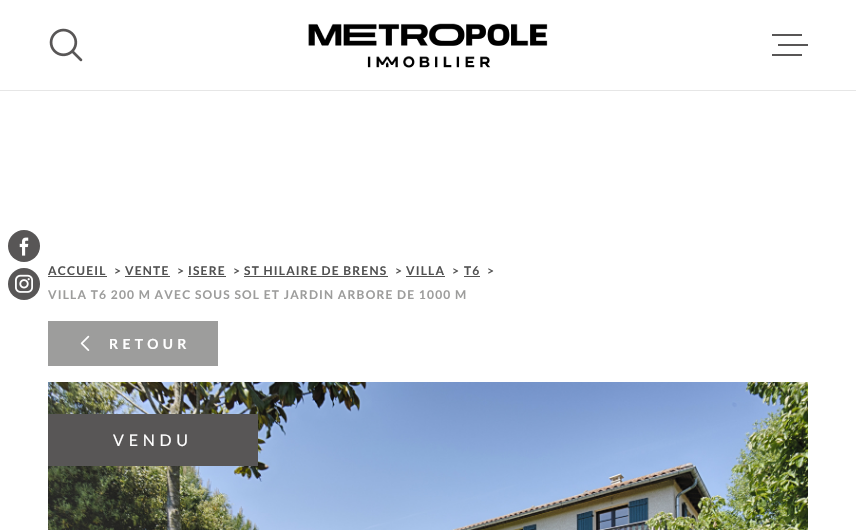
static SkFont makeFont(const char* family, int weight, float size, bool italic = false) {
  SkFontStyle style(weight, SkFontStyle::kNormal_Width,
    italic ? SkFontStyle::kItalic_Slant : SkFontStyle::kUpright_Slant);
  SkFont result(fontMgr->matchFamilyStyle(family, style), size);
  result.setSubpixel(true);
  return result;
}

static void spacedText(SkCanvas* c, const char* s, float x, float y, const SkFont& font, const SkPaint& ink, float letter, float word) {
  std::vector<SkGlyphID> glyphs(font.countText(s, strlen(s), SkTextEncoding::kUTF8));
  std::vector<float> xs(glyphs.size());
  font.textToGlyphs(s, strlen(s), SkTextEncoding::kUTF8, glyphs);
  font.getXPos(glyphs, xs, x);
  float extra = 0;
  for (size_t i = 0; i < glyphs.size(); i++) {
    xs[i] += extra;
    extra += letter + word * (glyphs[i] == font.unicharToGlyph(' '));
  }
  c->drawTextBlob(SkTextBlob::MakeFromPosHGlyphs(glyphs, xs, y, font), 0, 0, ink);
}

static void box(SkCanvas* c, float l, float t, float r, float b, SkColor color) {
  SkPaint ink(SkColor4f::FromColor(color));
  ink.setAntiAlias(true);
  c->drawRect(SkRect::MakeLTRB(l, t, r, b), ink);
}

static void picture(SkCanvas* c, const char* path, float l, float t, float r, float b) {
  auto image = SkImages::DeferredFromEncodedData(SkData::MakeFromFileName(path));
  c->drawImageRect(image, SkRect::MakeLTRB(l, t, r, b), SkSamplingOptions());
}

void draw(SkCanvas* c) {
  SkPaint paint;
  paint.setAntiAlias(true);
  c->clear(0xffffffff);
  paint.setColor(0xff585656);
  c->drawCircle(24, 246, 16, paint);
  picture(c, "img_01.png", 19, 237, 29, 256);
  c->drawCircle(24, 284, 16, paint);
  picture(c, "img_02.png", 15, 274, 33, 293);
  picture(c, "img_03.png", 49, 28, 83, 62);
  picture(c, "img_04.png", 308, 23, 548, 68);
  box(c, 778, 44, 808, 46, 0xff585656);
  box(c, 772, 34, 802, 36, 0xff585656);
  box(c, 772, 54, 802, 56, 0xff585656);
  box(c, 0, 90, 856, 91, 0xffe6e6e6);
  SkFont face1 = makeFont("Lato", 700, 12);
  paint.setColor(0xff525252);
  spacedText(c, "ACCUEIL", 48, 275, face1, paint, 1.2f, 0);
  box(c, 48, 276, 107, 277, 0xff525252);
  spacedText(c, ">", 114, 275, face1, paint, 1.2f, 0);
  spacedText(c, "VENTE", 125, 275, face1, paint, 1.2f, 0);
  box(c, 125, 276, 170, 277, 0xff525252);
  spacedText(c, ">", 177, 275, face1, paint, 1.2f, 0);
  spacedText(c, "ISERE", 188, 275, face1, paint, 1.2f, 0);
  box(c, 188, 276, 226, 277, 0xff525252);
  spacedText(c, ">", 233, 275, face1, paint, 1.2f, 0);
  spacedText(c, "ST HILAIRE DE BRENS", 244, 275, face1, paint, 1.2f, 0);
  box(c, 244, 276, 388, 277, 0xff525252);
  spacedText(c, ">", 395, 275, face1, paint, 1.2f, 0);
  spacedText(c, "VILLA", 406, 275, face1, paint, 1.2f, 0);
  box(c, 406, 276, 445, 277, 0xff525252);
  spacedText(c, ">", 452, 275, face1, paint, 1.2f, 0);
  spacedText(c, "T6", 464, 275, face1, paint, 1.2f, 0);
  box(c, 464, 276, 480, 277, 0xff525252);
  spacedText(c, ">", 487, 275, face1, paint, 1.2f, 0);
  paint.setColor(0xff9d9d9c);
  spacedText(c, "VILLA T6 200 M AVEC SOUS SOL ET JARDIN ARBORE DE 1000 M", 48, 299, face1, paint, 1.2f, 0);
  box(c, 48, 321, 218, 366, 0xff9d9d9c);
  picture(c, "img_05.png", 80, 335, 90, 351);
  SkFont face2 = makeFont("Lato", 700, 14);
  paint.setColor(0xffffffff);
  spacedText(c, "RETOUR", 109, 349, face2, paint, 4.25f, 0);
  picture(c, "img_06.png", 48, 382, 808, 530);
  box(c, 48, 414, 258, 466, 0xff585656);
  SkFont face3 = makeFont("Lato", 400, 16);
  spacedText(c, "VENDU", 113, 446, face3, paint, 4.75f, 0);
}
